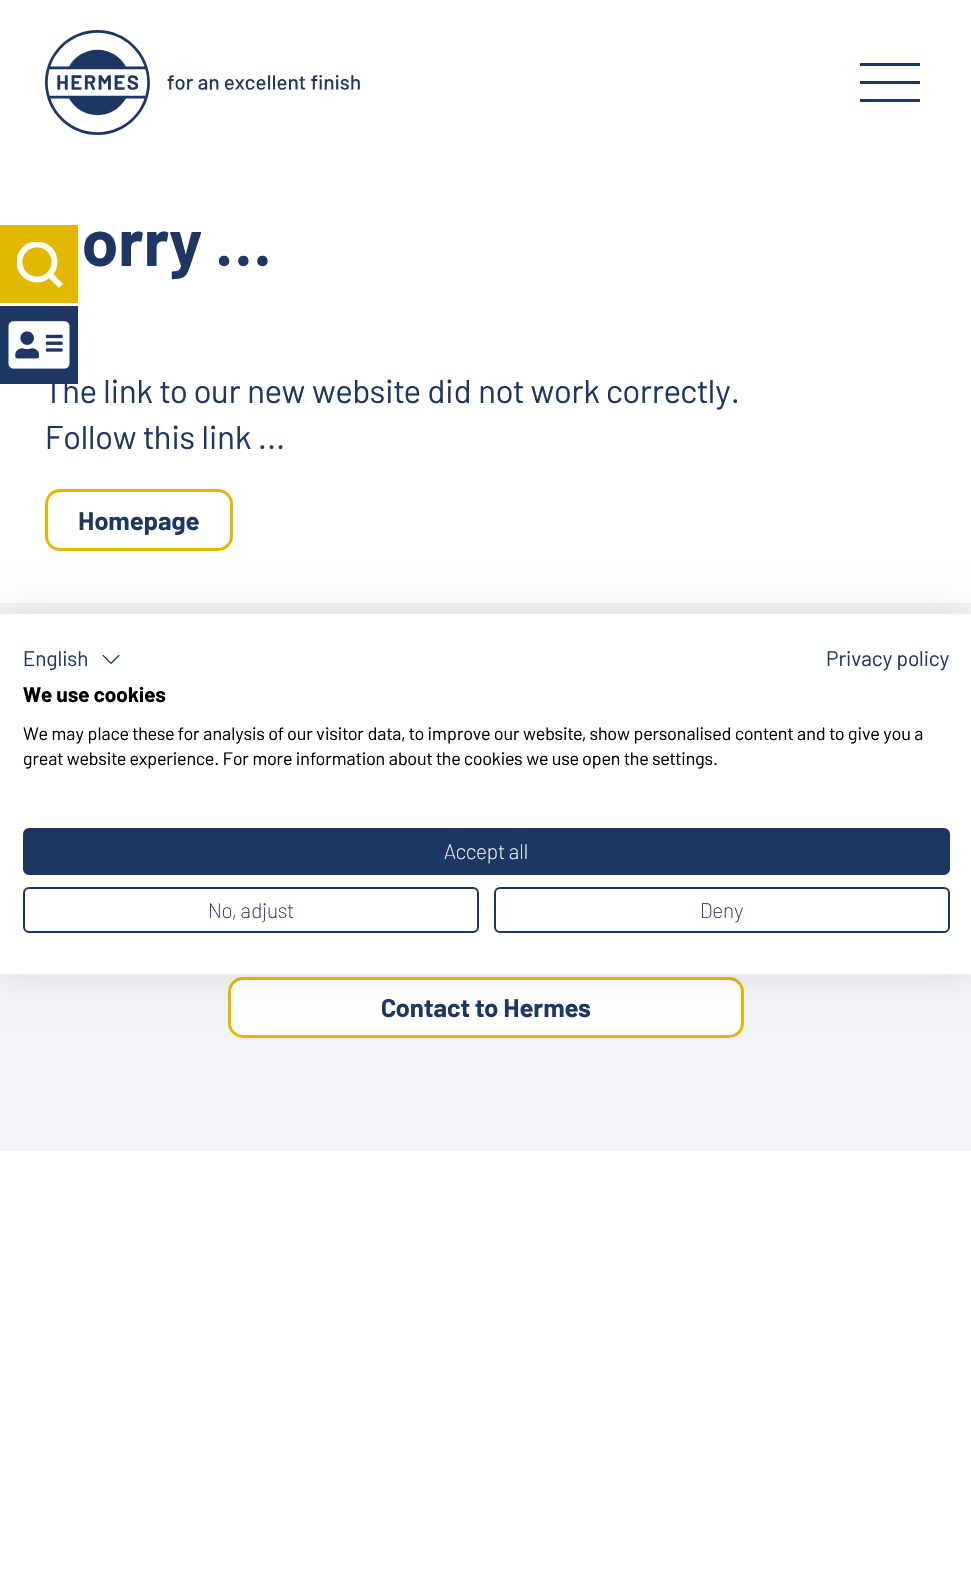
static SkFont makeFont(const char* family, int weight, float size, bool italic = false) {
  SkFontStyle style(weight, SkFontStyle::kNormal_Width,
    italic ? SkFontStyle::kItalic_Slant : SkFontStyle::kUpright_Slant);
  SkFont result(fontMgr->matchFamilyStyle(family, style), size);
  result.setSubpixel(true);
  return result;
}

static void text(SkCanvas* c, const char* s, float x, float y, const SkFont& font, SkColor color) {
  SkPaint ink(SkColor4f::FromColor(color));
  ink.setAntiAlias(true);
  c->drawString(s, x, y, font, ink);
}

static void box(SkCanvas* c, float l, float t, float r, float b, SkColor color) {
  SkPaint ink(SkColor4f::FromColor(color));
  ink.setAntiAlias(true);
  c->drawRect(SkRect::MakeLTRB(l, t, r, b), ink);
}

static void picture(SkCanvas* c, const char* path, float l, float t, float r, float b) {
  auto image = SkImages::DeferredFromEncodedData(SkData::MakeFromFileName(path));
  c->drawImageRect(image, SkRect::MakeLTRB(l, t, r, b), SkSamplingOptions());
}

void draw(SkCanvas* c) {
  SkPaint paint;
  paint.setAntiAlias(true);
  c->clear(0xffffffff);
  picture(c, "img_01.png", 45, 30, 360, 135);
  box(c, 860, 63, 920, 66, 0xff1e3664);
  box(c, 860, 81, 920, 84, 0xff1e3664);
  box(c, 860, 99, 920, 102, 0xff1e3664);
  box(c, 0, 225, 78, 303, 0xffe2b900);
  picture(c, "img_02.png", 17, 242, 63, 288);
  box(c, 0, 306, 78, 384, 0xff1e3664);
  picture(c, "img_03.png", 8, 321, 70, 369);
  SkFont face1 = makeFont("Barlow", 700, 66);
  text(c, "orry …", 82, 266, face1, 0xff1e3664);
  SkFont face2 = makeFont("Barlow", 400, 33);
  text(c, "The link to our new website did not work correctly.", 45, 403, face2, 0xff1e3664);
  text(c, "Follow this link ...", 45, 449, face2, 0xff1e3664);
  paint.setStyle(SkPaint::kStroke_Style);
  paint.setStrokeWidth(3);
  paint.setColor(0xffe2b900);
  c->drawRoundRect(SkRect::MakeLTRB(46.5f, 490.5f, 231.5f, 549.5f), 13.5f, 13.5f, paint);
  SkFont face3 = makeFont("Barlow", 700, 25.5f);
  text(c, "Homepage", 78, 530, face3, 0xff1e3664);
  box(c, 0, 603, 971, 1151, 0xfff3f4f7);
  paint.setStyle(SkPaint::kFill_Style);
  paint.setColor(0xffffffff);
  c->drawRoundRect(SkRect::MakeLTRB(229.5f, 978.5f, 742.5f, 1036.5f), 13.5f, 13.5f, paint);
  paint.setStyle(SkPaint::kStroke_Style);
  paint.setColor(0xffe2b900);
  c->drawRoundRect(SkRect::MakeLTRB(229.5f, 978.5f, 742.5f, 1036.5f), 13.5f, 13.5f, paint);
  text(c, "Contact to Hermes", 381, 1017, face3, 0xff1e3664);
  paint.setStyle(SkPaint::kFill_Style);
  paint.setColor(0x1a000000);
  paint.setMaskFilter(SkMaskFilter::MakeBlur(kNormal_SkBlurStyle, 18));
  c->drawRect(SkRect::MakeLTRB(0, 614, 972, 974), paint);
  paint.setMaskFilter(nullptr);
  box(c, 0, 614, 971, 974, 0xffffffff);
  SkFont face4 = makeFont("Barlow", 400, 21);
  text(c, "English", 23, 666, face4, 0xff1e3664);
  picture(c, "img_04.png", 102, 654, 120, 664);
  text(c, "Privacy policy", 826, 666, face4, 0xff1e3664);
  SkFont face5 = makeFont("Barlow", 700, 21);
  text(c, "We use cookies", 23, 702, face5, 0xff000000);
  SkFont face6 = makeFont("Barlow", 400, 18);
  text(c, "We may place these for analysis of our visitor data, to improve our website, show personalised content and to give you a", 23, 740, face6, 0xff000000);
  text(c, "great website experience. For more information about the cookies we use open the settings.", 23, 765, face6, 0xff000000);
  paint.setColor(0xff1e3664);
  c->drawRoundRect(SkRect::MakeLTRB(24, 829, 949, 874), 5, 5, paint);
  paint.setStyle(SkPaint::kStroke_Style);
  paint.setStrokeWidth(2);
  c->drawRoundRect(SkRect::MakeLTRB(24, 829, 949, 874), 5, 5, paint);
  SkFont face7 = makeFont("Barlow", 200, 21);
  text(c, "Accept all", 444, 859, face7, 0xffffffff);
  c->drawRoundRect(SkRect::MakeLTRB(24, 888, 478, 932), 5, 5, paint);
  text(c, "No, adjust", 208, 918, face7, 0xff1e3664);
  c->drawRoundRect(SkRect::MakeLTRB(495, 888, 949, 932), 5, 5, paint);
  text(c, "Deny", 700, 918, face7, 0xff1e3664);
}
